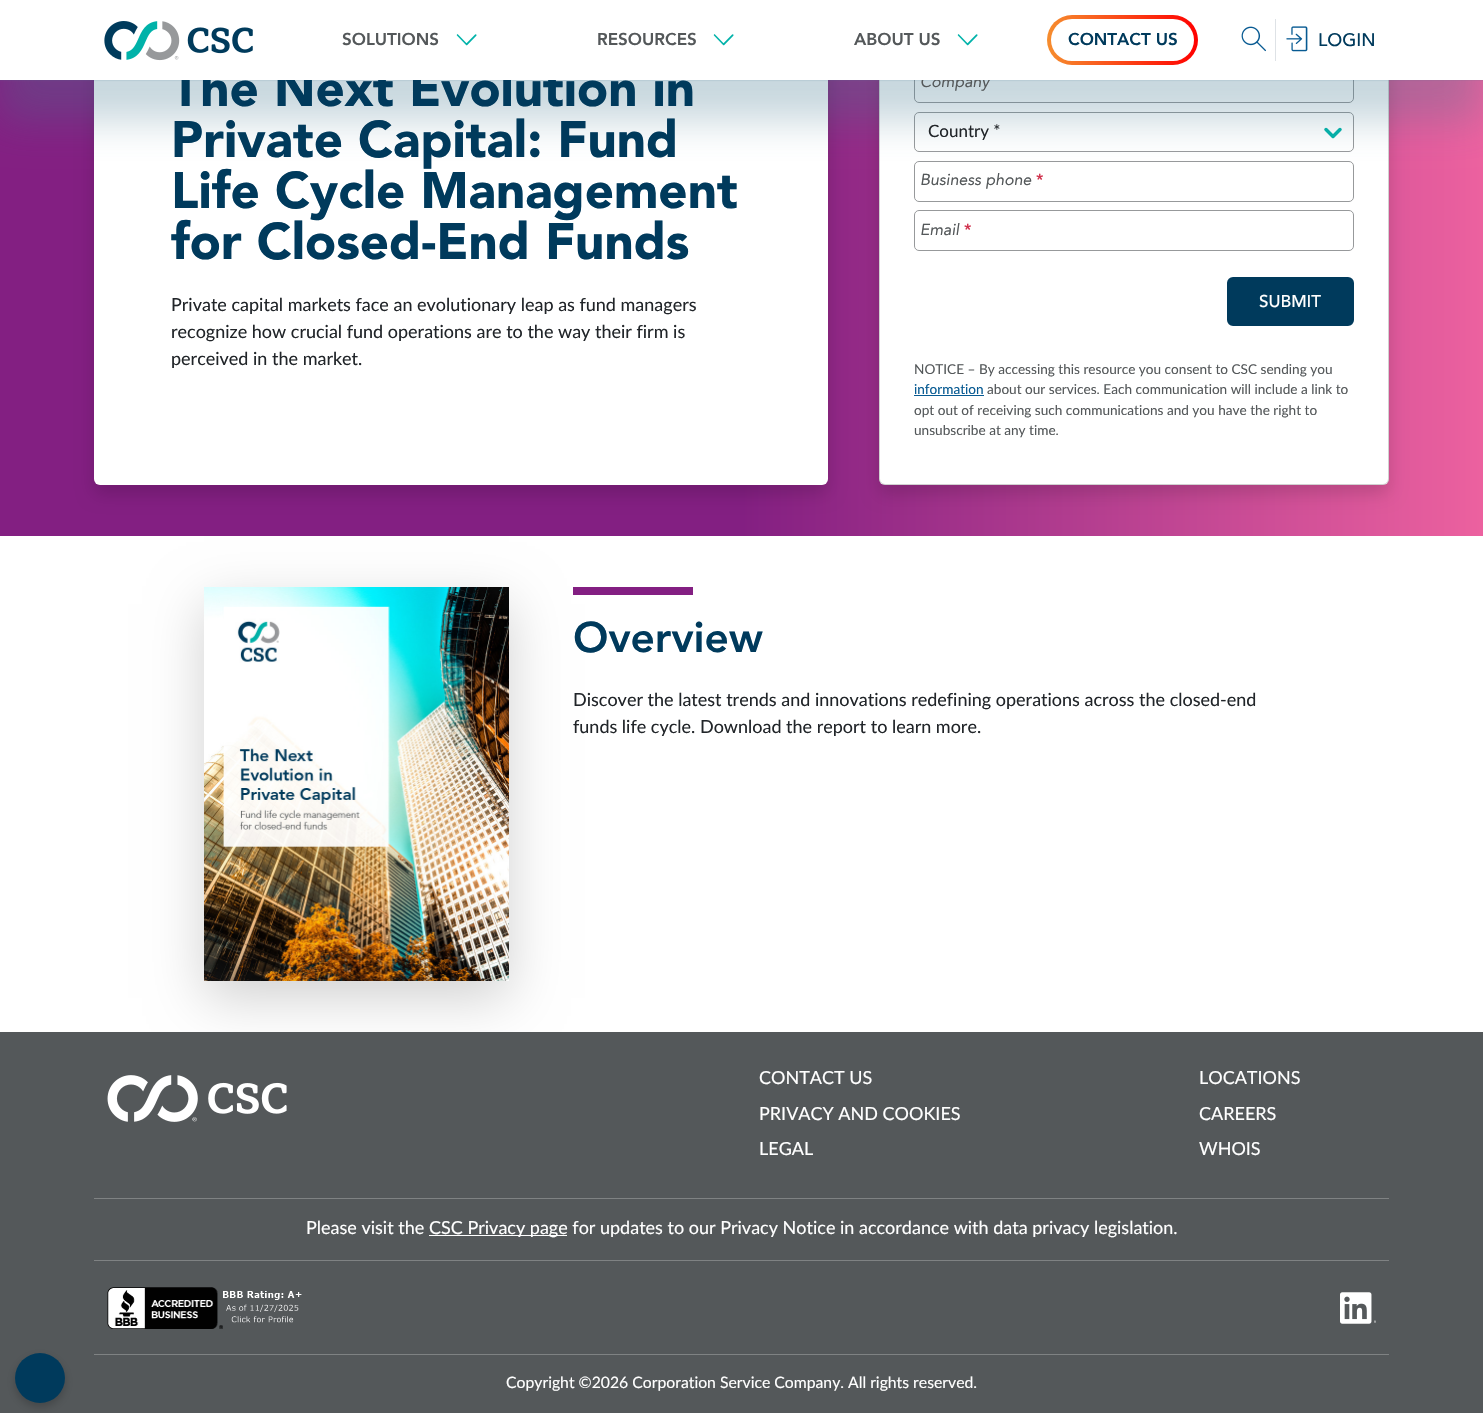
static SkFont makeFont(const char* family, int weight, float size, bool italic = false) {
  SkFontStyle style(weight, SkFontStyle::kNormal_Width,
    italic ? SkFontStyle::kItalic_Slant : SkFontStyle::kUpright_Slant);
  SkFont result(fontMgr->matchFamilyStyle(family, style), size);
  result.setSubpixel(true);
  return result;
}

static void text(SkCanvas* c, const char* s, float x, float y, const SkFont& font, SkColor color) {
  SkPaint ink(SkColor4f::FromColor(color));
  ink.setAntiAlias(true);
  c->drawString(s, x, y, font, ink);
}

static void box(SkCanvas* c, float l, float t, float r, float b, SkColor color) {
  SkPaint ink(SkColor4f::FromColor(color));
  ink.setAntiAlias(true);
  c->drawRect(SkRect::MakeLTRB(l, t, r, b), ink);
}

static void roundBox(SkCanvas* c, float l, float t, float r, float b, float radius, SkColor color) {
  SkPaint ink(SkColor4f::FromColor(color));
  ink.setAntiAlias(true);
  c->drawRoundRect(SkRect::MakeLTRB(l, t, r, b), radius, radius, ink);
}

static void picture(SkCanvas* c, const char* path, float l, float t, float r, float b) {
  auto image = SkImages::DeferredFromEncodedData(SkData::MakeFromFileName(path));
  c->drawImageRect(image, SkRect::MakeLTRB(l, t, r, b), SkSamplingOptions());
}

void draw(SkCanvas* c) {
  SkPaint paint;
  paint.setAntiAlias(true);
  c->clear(0xffffffff);
  paint.setColor(0x2e000000);
  paint.setMaskFilter(SkMaskFilter::MakeBlur(kNormal_SkBlurStyle, 25.5f));
  c->drawRect(SkRect::MakeLTRB(204, 604, 509, 998), paint);
  paint.setMaskFilter(nullptr);
  {
    const SkColor colors[] = {0xff831f82, 0xffec619f};
    const float stops[] = {0.5f, 1};
    const SkPoint ends[] = {{0, 172}, {1483, 172}};
    paint.setShader(SkGradientShader::MakeLinear(ends, colors, stops, 2, SkTileMode::kClamp));
    paint.setAlpha(255);
  }
  c->drawRect(SkRect::MakeLTRB(0, 80, 1483, 536), paint);
  paint.setShader(nullptr);
  paint.setColor(0x26000000);
  paint.setMaskFilter(SkMaskFilter::MakeBlur(kNormal_SkBlurStyle, 8.5f));
  c->drawRoundRect(SkRect::MakeLTRB(94, -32, 828, 494), 6, 6, paint);
  paint.setMaskFilter(nullptr);
  roundBox(c, 94, -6, 828, 485, 6, 0xffffffff);
  paint.setMaskFilter(SkMaskFilter::MakeBlur(kNormal_SkBlurStyle, 8.5f));
  c->drawRoundRect(SkRect::MakeLTRB(879, -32, 1389, 494), 6, 6, paint);
  paint.setMaskFilter(nullptr);
  roundBox(c, 879, -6, 1389, 485, 6, 0xffffffff);
  paint.setStyle(SkPaint::kStroke_Style);
  paint.setStrokeWidth(1);
  paint.setColor(0x2e000000);
  c->drawRoundRect(SkRect::MakeLTRB(879.5f, -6.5f, 1388.5f, 484.5f), 5.5f, 5.5f, paint);
  paint.setColor(0xff97999b);
  c->drawRoundRect(SkRect::MakeLTRB(914.5f, 62.5f, 1353.5f, 102.5f), 4.5f, 4.5f, paint);
  paint.setStrokeWidth(3.5f);
  paint.setStrokeCap(SkPaint::kRound_Cap);
  paint.setStrokeJoin(SkPaint::kRound_Join);
  paint.setColor(0xff00b2a9);
  c->drawPath(SkPathBuilder().moveTo(1326, 129.5f).lineTo(1333, 136.5f).lineTo(1340, 129.5f).detach(), paint);
  paint.setStrokeWidth(1);
  paint.setStrokeCap(SkPaint::kButt_Cap);
  paint.setStrokeJoin(SkPaint::kMiter_Join);
  paint.setColor(0xff97999b);
  c->drawRoundRect(SkRect::MakeLTRB(914.5f, 112.5f, 1353.5f, 151.5f), 4.5f, 4.5f, paint);
  c->drawRoundRect(SkRect::MakeLTRB(914.5f, 161.5f, 1353.5f, 201.5f), 4.5f, 4.5f, paint);
  paint.setStyle(SkPaint::kFill_Style);
  paint.setColor(0x4d42788f);
  paint.setMaskFilter(SkMaskFilter::MakeBlur(kNormal_SkBlurStyle, 20));
  c->drawRect(SkRect::MakeLTRB(0, 40, 1483, 120), paint);
  paint.setMaskFilter(nullptr);
  paint.setColor(0x1a42788f);
  paint.setMaskFilter(SkMaskFilter::MakeBlur(kNormal_SkBlurStyle, 0.5f));
  c->drawRect(SkRect::MakeLTRB(0, 1, 1483, 81), paint);
  paint.setMaskFilter(nullptr);
  SkFont face1 = makeFont("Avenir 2", 900, 51);
  text(c, "The Next Evolution in", 171, 106, face1, 0xff003a5c);
  SkFont face2 = makeFont("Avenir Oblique", 400, 16);
  text(c, "Company", 920, 87, face2, 0xff54585a);
  box(c, 0, 0, 1483, 80, 0xffffffff);
  picture(c, "img_01.png", 104, 21, 253, 61);
  SkFont face3 = makeFont("Avenir", 900, 17);
  text(c, "SOLUTIONS", 342, 45, face3, 0xff54585a);
  picture(c, "img_02.png", 456, 34, 477, 46);
  text(c, "RESOURCES", 597, 45, face3, 0xff54585a);
  picture(c, "img_02.png", 713, 34, 734, 46);
  text(c, "ABOUT US", 854, 45, face3, 0xff54585a);
  picture(c, "img_02.png", 957, 34, 978, 46);
  {
    const SkColor colors[] = {0xffff0000, 0xfff68d2e};
    const float stops[] = {0, 1};
    const SkPoint ends[] = {{1198, 40}, {1047, 40}};
    paint.setShader(SkGradientShader::MakeLinear(ends, colors, stops, 2, SkTileMode::kClamp));
    paint.setAlpha(255);
  }
  c->drawRoundRect(SkRect::MakeLTRB(1047, 15, 1198, 65), 25, 25, paint);
  roundBox(c, 1051, 19, 1194, 61, 21, 0xffffffff);
  text(c, "CONTACT US", 1068, 45, face3, 0xff003a5c);
  box(c, 1275, 19, 1276, 61, 0xffdee2e6);
  picture(c, "img_03.png", 1241, 26, 1266, 52);
  picture(c, "img_04.png", 1286, 26, 1308, 52);
  SkFont face4 = makeFont("Avenir", 500, 18);
  text(c, "LOGIN", 1318, 46, face4, 0xff003a5c);
  text(c, "Private Capital: Fund", 171, 157, face1, 0xff003a5c);
  text(c, "Life Cycle Management", 171, 208, face1, 0xff003a5c);
  text(c, "for Closed-End Funds", 171, 259, face1, 0xff003a5c);
  SkFont face5 = makeFont("Lato", 400, 18);
  text(c, "Private capital markets face an evolutionary leap as fund managers", 171, 311, face5, 0xff212529);
  text(c, "recognize how crucial fund operations are to the way their firm is", 171, 338, face5, 0xff212529);
  text(c, "perceived in the market.", 171, 365, face5, 0xff212529);
  SkFont face6 = makeFont("Lato", 400, 17);
  text(c, "Country *", 928, 137, face6, 0xff212529);
  text(c, "Business phone", 920, 185, face2, 0xff54585a);
  SkFont face7 = makeFont("Avenir", 900, 16);
  text(c, "*", 1036, 185, face7, 0xffd1344f);
  paint.setStyle(SkPaint::kStroke_Style);
  paint.setShader(nullptr);
  paint.setColor(0xff97999b);
  c->drawRoundRect(SkRect::MakeLTRB(914.5f, 210.5f, 1353.5f, 250.5f), 4.5f, 4.5f, paint);
  text(c, "Email", 920, 235, face2, 0xff54585a);
  text(c, "*", 964, 235, face7, 0xffd1344f);
  paint.setStyle(SkPaint::kFill_Style);
  paint.setColor(0xff003a5c);
  c->drawRoundRect(SkRect::MakeLTRB(1228, 278, 1353, 325), 5, 5, paint);
  paint.setStyle(SkPaint::kStroke_Style);
  paint.setStrokeWidth(2);
  c->drawRoundRect(SkRect::MakeLTRB(1228, 278, 1353, 325), 5, 5, paint);
  SkFont face8 = makeFont("Avenir", 500, 17);
  text(c, "SUBMIT", 1259, 307, face8, 0xffffffff);
  SkFont face9 = makeFont("Lato", 400, 13.6f);
  text(c, "NOTICE – By accessing this resource you consent to CSC sending you", 914, 374, face9, 0xff54585a);
  text(c, "information", 914, 394, face9, 0xff075a92);
  box(c, 914, 395, 984, 396, 0xff075a92);
  text(c, "about our services. Each communication will include a link to", 987, 394, face9, 0xff54585a);
  text(c, "opt out of receiving such communications and you have the right to", 914, 415, face9, 0xff54585a);
  text(c, "unsubscribe at any time.", 914, 435, face9, 0xff54585a);
  picture(c, "img_05.png", 204, 587, 509, 981);
  box(c, 573, 587, 693, 595, 0xff831f82);
  SkFont face10 = makeFont("Avenir", 900, 42.5f);
  text(c, "Overview", 573, 652, face10, 0xff003a5c);
  text(c, "Discover the latest trends and innovations redefining operations across the closed-end", 573, 706, face5, 0xff212529);
  text(c, "funds life cycle. Download the report to learn more.", 573, 733, face5, 0xff212529);
  box(c, 0, 1032, 1483, 1413, 0xff54585a);
  paint.setStyle(SkPaint::kFill_Style);
  paint.setColor(0x33000000);
  paint.setMaskFilter(SkMaskFilter::MakeBlur(kNormal_SkBlurStyle, 4));
  c->drawRoundRect(SkRect::MakeLTRB(15, 1357, 65, 1407), 25, 25, paint);
  paint.setMaskFilter(nullptr);
  paint.setColor(0xff003a5c);
  c->drawCircle(40, 1378, 25, paint);
  picture(c, "img_06.png", 107, 1075, 287, 1122);
  text(c, "CONTACT US", 759, 1084, face5, 0xffffffff);
  text(c, "PRIVACY AND COOKIES", 759, 1120, face5, 0xffffffff);
  text(c, "LEGAL", 759, 1155, face5, 0xffffffff);
  text(c, "LOCATIONS", 1199, 1084, face5, 0xffffffff);
  text(c, "CAREERS", 1199, 1120, face5, 0xffffffff);
  text(c, "WHOIS", 1199, 1155, face5, 0xffffffff);
  box(c, 94, 1198, 1389, 1199, 0xff7f8283);
  text(c, "Please visit the", 306, 1234, face5, 0xffffffff);
  box(c, 429, 1235, 567, 1236, 0xffffffff);
  text(c, "CSC Privacy page for updates to our Privacy Notice in accordance with data privacy legislation.", 429, 1234, face5, 0xffffffff);
  box(c, 94, 1260, 1389, 1261, 0xff7f8283);
  picture(c, "img_07.png", 107, 1287, 302, 1329);
  picture(c, "img_08.png", 1340, 1292, 1376, 1324);
  box(c, 94, 1354, 1389, 1355, 0xff7f8283);
  SkFont face11 = makeFont("Lato", 400, 15.75f);
  text(c, "Copyright ©2026 Corporation Service Company. All rights reserved.", 506, 1388, face11, 0xffffffff);
}
